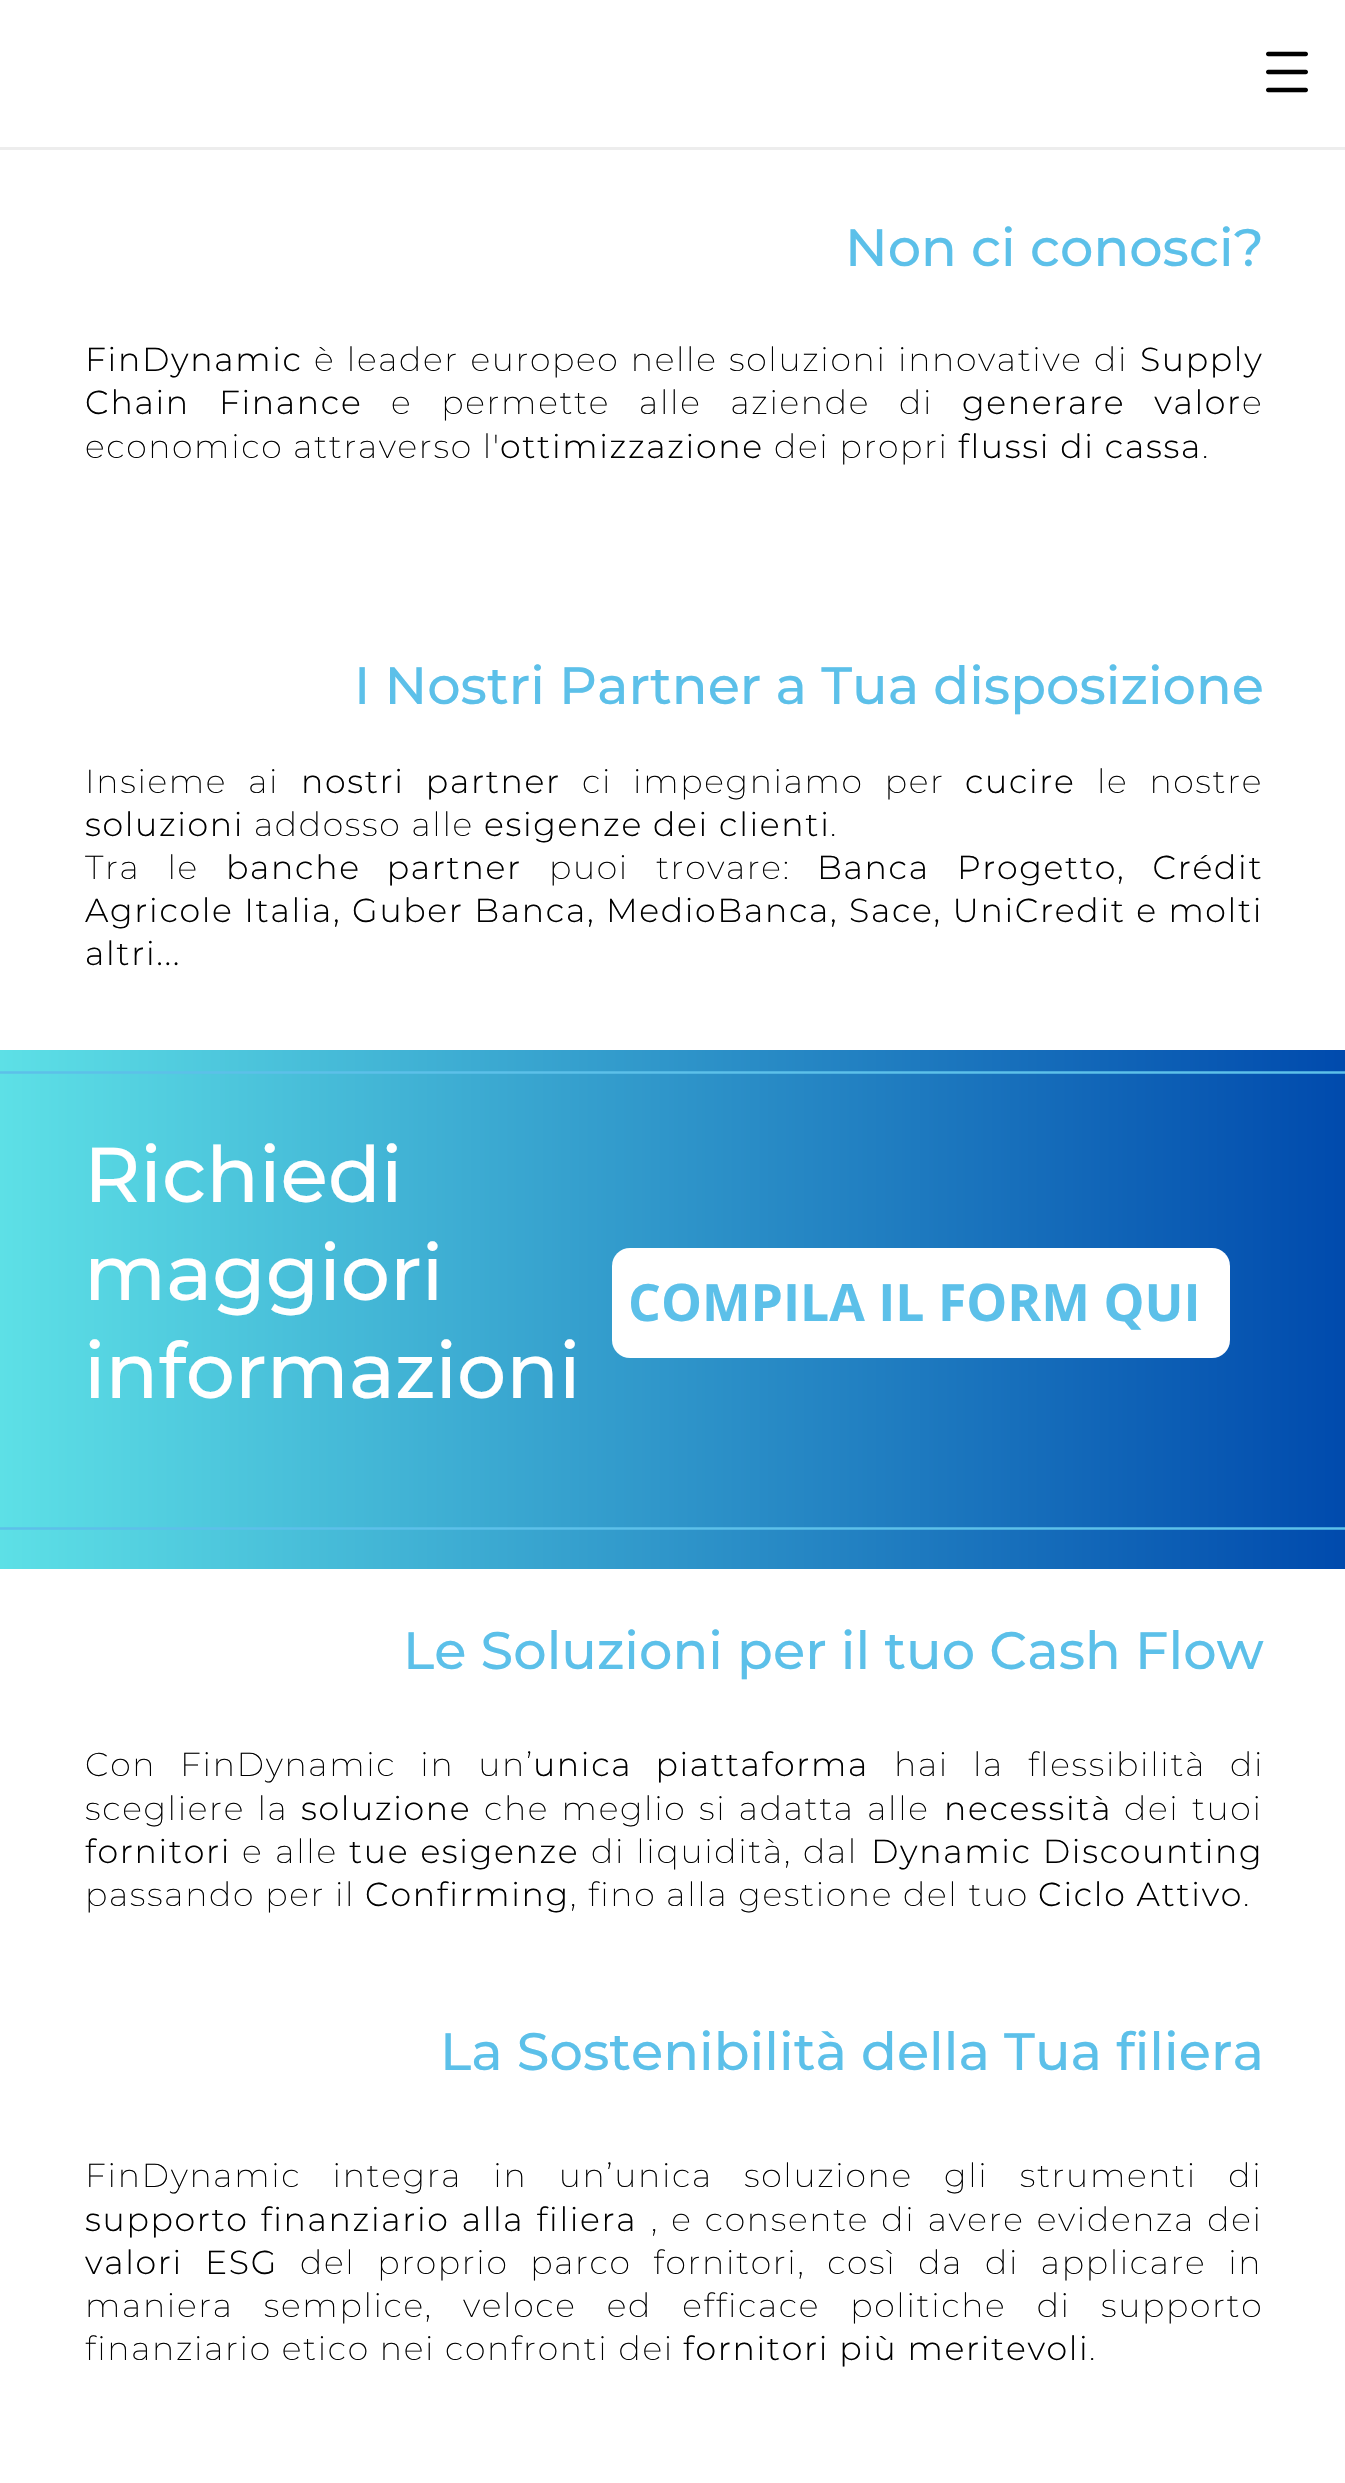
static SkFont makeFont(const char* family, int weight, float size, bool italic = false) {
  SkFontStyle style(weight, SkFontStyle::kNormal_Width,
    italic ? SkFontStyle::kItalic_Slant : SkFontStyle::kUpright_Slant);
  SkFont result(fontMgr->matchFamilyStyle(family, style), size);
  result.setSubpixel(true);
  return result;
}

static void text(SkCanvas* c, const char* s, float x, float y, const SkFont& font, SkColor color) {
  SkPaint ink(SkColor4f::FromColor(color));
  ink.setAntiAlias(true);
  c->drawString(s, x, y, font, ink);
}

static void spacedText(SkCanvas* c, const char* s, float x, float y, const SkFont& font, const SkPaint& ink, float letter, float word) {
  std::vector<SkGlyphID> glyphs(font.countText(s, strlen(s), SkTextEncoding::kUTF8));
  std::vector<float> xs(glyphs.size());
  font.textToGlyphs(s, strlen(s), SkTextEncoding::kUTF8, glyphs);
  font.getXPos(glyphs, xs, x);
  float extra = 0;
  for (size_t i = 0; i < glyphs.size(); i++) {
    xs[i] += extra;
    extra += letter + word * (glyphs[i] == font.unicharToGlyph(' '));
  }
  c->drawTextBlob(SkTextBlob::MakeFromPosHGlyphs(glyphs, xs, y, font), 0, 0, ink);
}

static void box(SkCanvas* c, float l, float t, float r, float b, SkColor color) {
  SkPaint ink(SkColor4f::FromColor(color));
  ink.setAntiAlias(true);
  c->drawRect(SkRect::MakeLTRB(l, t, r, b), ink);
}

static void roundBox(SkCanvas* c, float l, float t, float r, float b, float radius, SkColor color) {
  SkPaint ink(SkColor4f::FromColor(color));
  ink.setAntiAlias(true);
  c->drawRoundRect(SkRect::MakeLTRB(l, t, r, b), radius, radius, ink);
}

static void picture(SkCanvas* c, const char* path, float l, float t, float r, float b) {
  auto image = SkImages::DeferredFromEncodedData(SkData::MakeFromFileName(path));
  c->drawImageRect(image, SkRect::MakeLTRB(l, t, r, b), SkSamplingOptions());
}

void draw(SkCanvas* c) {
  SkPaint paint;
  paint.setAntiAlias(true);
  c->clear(0xffffffff);
  box(c, 0, 147, 1345, 150, 0xffededed);
  picture(c, "img_01.png", 1266, 51, 1308, 93);
  SkFont face1 = makeFont("Montserrat", 500, 52.6f);
  text(c, "Non ci conosci?", 845, 266, face1, 0xff5cc0e9);
  SkFont face2 = makeFont("Montserrat", 300, 33.2f);
  paint.setColor(0xff000000);
  spacedText(c, "FinDynamic", 85, 371, face2, paint, 1.65f, 0);
  SkFont face3 = makeFont("Montserrat", 200, 33.2f);
  spacedText(c, "è leader europeo nelle soluzioni innovative di", 314, 371, face3, paint, 1.65f, 1.5f);
  spacedText(c, "Supply", 1140, 371, face2, paint, 1.65f, 0);
  spacedText(c, "Chain Finance", 85, 414, face2, paint, 1.65f, 19);
  spacedText(c, "e permette alle aziende di", 391, 414, face3, paint, 1.65f, 19);
  spacedText(c, "generare valor", 962, 414, face2, paint, 1.65f, 19);
  spacedText(c, "e", 1242, 414, face3, paint, 1.65f, 0);
  spacedText(c, "economico attraverso l'", 85, 458, face3, paint, 1.65f, 0);
  spacedText(c, "ottimizzazione", 500, 458, face2, paint, 1.65f, 0);
  spacedText(c, "dei propri", 774, 458, face3, paint, 1.65f, 0);
  spacedText(c, "flussi di cassa", 958, 458, face2, paint, 1.65f, 0);
  spacedText(c, ".", 1202, 458, face3, paint, 1.65f, 0);
  text(c, "I Nostri Partner a Tua disposizione", 354, 704, face1, 0xff5cc0e9);
  spacedText(c, "Insieme ai", 85, 793, face3, paint, 1.65f, 11);
  spacedText(c, "nostri partner", 301, 793, face2, paint, 1.65f, 11);
  spacedText(c, "ci impegniamo per", 582, 793, face3, paint, 1.65f, 11);
  spacedText(c, "cucire", 965, 793, face2, paint, 1.65f, 0);
  spacedText(c, "le nostre", 1097, 793, face3, paint, 1.65f, 11);
  spacedText(c, "soluzioni", 85, 836, face2, paint, 1.65f, 0);
  spacedText(c, "addosso alle", 254, 836, face3, paint, 1.65f, 0);
  spacedText(c, "esigenze dei clienti", 484, 836, face2, paint, 1.65f, 0);
  spacedText(c, ".", 830, 836, face3, paint, 1.65f, 0);
  spacedText(c, "Tra le", 85, 879, face3, paint, 1.65f, 17);
  spacedText(c, "banche partner", 226, 879, face2, paint, 1.65f, 16);
  spacedText(c, "puoi trovare:", 549, 879, face3, paint, 1.65f, 17);
  spacedText(c, "Banca Progetto, Crédit", 817, 879, face2, paint, 1.65f, 17);
  spacedText(c, "Agricole Italia, Guber Banca, MedioBanca, Sace, UniCredit e molti", 85, 922, face2, paint, 1.65f, 0.5f);
  spacedText(c, "altri...", 85, 965, face2, paint, 1.65f, 0);
  {
    const SkColor colors[] = {0xff5de0e6, 0xff004aad};
    const float stops[] = {0, 1};
    const SkPoint ends[] = {{0, 1311}, {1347, 1311}};
    paint.setShader(SkGradientShader::MakeLinear(ends, colors, stops, 2, SkTileMode::kClamp));
    paint.setAlpha(255);
  }
  c->drawRect(SkRect::MakeLTRB(0, 1050, 1345, 1569), paint);
  paint.setStyle(SkPaint::kStroke_Style);
  paint.setStrokeWidth(2.4f);
  paint.setShader(nullptr);
  paint.setColor(0xff5cc0e9);
  c->drawPath(SkPathBuilder().moveTo(0, 1072.5f).lineTo(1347, 1072.5f).detach(), paint);
  SkFont face4 = makeFont("Montserrat", 500, 77.5f);
  text(c, "Richiedi", 84, 1202, face4, 0xffffffff);
  text(c, "maggiori", 84, 1300, face4, 0xffffffff);
  text(c, "informazioni", 84, 1398, face4, 0xffffffff);
  roundBox(c, 612, 1248, 1230, 1358, 18, 0xffffffff);
  SkFont face5 = makeFont("Open Sans", 700, 51.6f);
  text(c, "COMPILA IL FORM QUI", 628, 1321, face5, 0xff5cc0e9);
  c->drawPath(SkPathBuilder().moveTo(0, 1528.5f).lineTo(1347, 1528.5f).detach(), paint);
  text(c, "Le Soluzioni per il tuo Cash Flow", 403, 1669, face1, 0xff5cc0e9);
  paint.setStyle(SkPaint::kFill_Style);
  paint.setColor(0xff000000);
  spacedText(c, "Con", 85, 1776, face3, paint, 1.65f, 0);
  spacedText(c, "FinDynamic in un’", 180, 1776, face3, paint, 1.65f, 14);
  spacedText(c, "unica piattaforma", 533, 1776, face2, paint, 1.65f, 13);
  spacedText(c, "hai la flessibilità di", 894, 1776, face3, paint, 1.65f, 14);
  spacedText(c, "scegliere la", 85, 1820, face3, paint, 1.65f, 2.5f);
  spacedText(c, "soluzione", 301, 1820, face2, paint, 1.65f, 0);
  spacedText(c, "che meglio si adatta alle", 484, 1820, face3, paint, 1.65f, 2.5f);
  spacedText(c, "necessità", 944, 1820, face2, paint, 1.65f, 0);
  spacedText(c, "dei tuoi", 1124, 1820, face3, paint, 1.65f, 2.5f);
  spacedText(c, "fornitori", 85, 1863, face2, paint, 1.65f, 0);
  spacedText(c, "e alle", 242, 1863, face3, paint, 1.65f, 2);
  spacedText(c, "tue esigenze", 349, 1863, face2, paint, 1.65f, 1);
  spacedText(c, "di liquidità, dal", 591, 1863, face3, paint, 1.65f, 1);
  spacedText(c, "Dynamic Discounting", 871, 1863, face2, paint, 1.65f, 1);
  spacedText(c, "passando per il", 85, 1906, face3, paint, 1.65f, 0);
  spacedText(c, "Confirming", 365, 1906, face2, paint, 1.65f, 0);
  spacedText(c, ", fino alla gestione del tuo", 570, 1906, face3, paint, 1.65f, 0);
  spacedText(c, "Ciclo Attivo", 1038, 1906, face2, paint, 1.65f, 0);
  spacedText(c, ".", 1243, 1906, face3, paint, 1.65f, 0);
  text(c, "La Sostenibilità della Tua filiera", 440, 2070, face1, 0xff5cc0e9);
  spacedText(c, "FinDynamic integra in un’unica soluzione gli strumenti di", 85, 2187, face3, paint, 1.65f, 21.25f);
  spacedText(c, "supporto finanziario alla filiera", 85, 2231, face2, paint, 1.65f, 2);
  spacedText(c, ", e consente di avere evidenza dei", 651, 2231, face3, paint, 1.65f, 2.25f);
  spacedText(c, "valori ESG", 85, 2274, face2, paint, 1.65f, 12);
  spacedText(c, "del proprio parco fornitori, così da di applicare in", 300, 2274, face3, paint, 1.65f, 11.75f);
  spacedText(c, "maniera semplice, veloce ed efficace politiche di supporto", 85, 2317, face3, paint, 1.65f, 20.25f);
  spacedText(c, "finanziario etico nei confronti dei", 85, 2360, face3, paint, 1.65f, 0);
  spacedText(c, "fornitori più meritevoli", 683, 2360, face2, paint, 1.65f, 0);
  spacedText(c, ".", 1089, 2360, face3, paint, 1.65f, 0);
}
